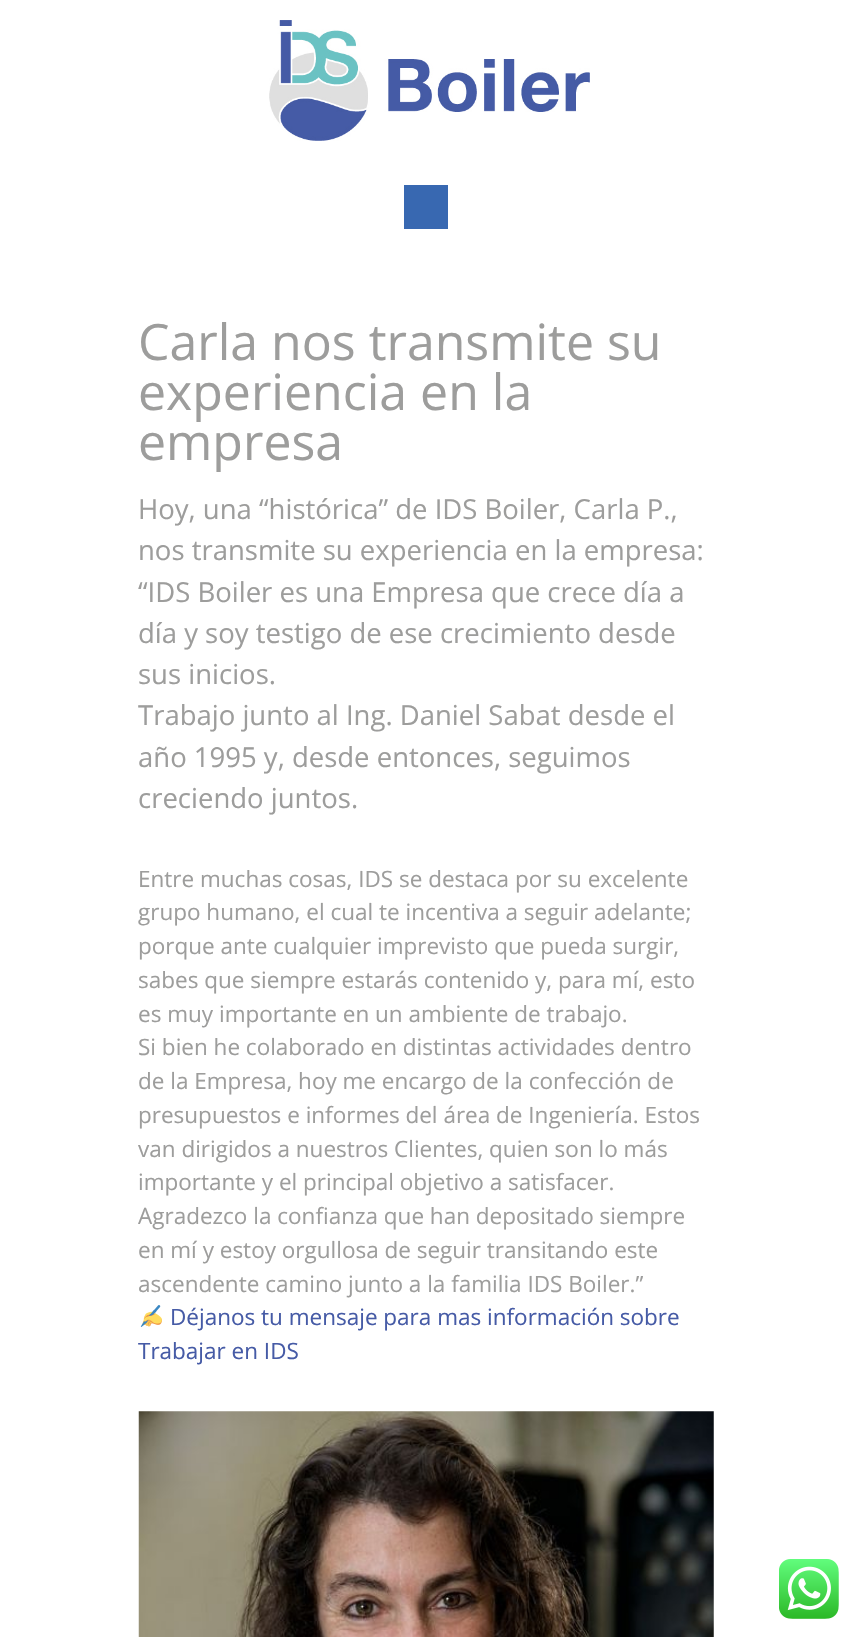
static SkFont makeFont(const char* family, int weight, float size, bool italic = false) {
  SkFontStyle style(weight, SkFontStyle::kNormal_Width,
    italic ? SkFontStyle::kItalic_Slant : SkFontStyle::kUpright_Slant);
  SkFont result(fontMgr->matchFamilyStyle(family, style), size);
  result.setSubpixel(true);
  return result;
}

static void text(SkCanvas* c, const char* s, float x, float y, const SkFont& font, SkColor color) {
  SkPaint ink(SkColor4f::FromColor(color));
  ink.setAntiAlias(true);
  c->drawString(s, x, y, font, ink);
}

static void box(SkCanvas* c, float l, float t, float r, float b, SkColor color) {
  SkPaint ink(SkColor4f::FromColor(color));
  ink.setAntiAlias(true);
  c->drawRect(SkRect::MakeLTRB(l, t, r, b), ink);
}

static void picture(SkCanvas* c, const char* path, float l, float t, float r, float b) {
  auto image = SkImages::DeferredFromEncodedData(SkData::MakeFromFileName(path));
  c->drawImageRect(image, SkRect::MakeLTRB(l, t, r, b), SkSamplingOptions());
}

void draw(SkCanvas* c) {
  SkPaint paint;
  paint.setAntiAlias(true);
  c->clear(0xffffffff);
  picture(c, "img_01.png", 269, 20, 590, 141);
  box(c, 404, 185, 448, 229, 0xff3868b1);
  SkFont face1 = makeFont("Open Sans", 400, 50);
  text(c, "Carla nos transmite su", 138, 360, face1, 0xff9d9d9c);
  text(c, "experiencia en la", 138, 410, face1, 0xff9d9d9c);
  text(c, "empresa", 138, 460, face1, 0xff9d9d9c);
  SkFont face2 = makeFont("Open Sans", 400, 27.5f);
  text(c, "Hoy, una “histórica” de IDS Boiler, Carla P.,", 138, 519, face2, 0xff9d9d9c);
  text(c, "nos transmite su experiencia en la empresa:", 138, 560, face2, 0xff9d9d9c);
  text(c, "“IDS Boiler es una Empresa que crece día a", 138, 602, face2, 0xff9d9d9c);
  text(c, "día y soy testigo de ese crecimiento desde", 138, 643, face2, 0xff9d9d9c);
  text(c, "sus inicios.", 138, 684, face2, 0xff9d9d9c);
  text(c, "Trabajo junto al Ing. Daniel Sabat desde el", 138, 725, face2, 0xff9d9d9c);
  text(c, "año 1995 y, desde entonces, seguimos", 138, 767, face2, 0xff9d9d9c);
  text(c, "creciendo juntos.", 138, 808, face2, 0xff9d9d9c);
  SkFont face3 = makeFont("Open Sans", 400, 22.5f);
  text(c, "Entre muchas cosas, IDS se destaca por su excelente", 138, 887, face3, 0xff9d9d9c);
  text(c, "grupo humano, el cual te incentiva a seguir adelante;", 138, 920, face3, 0xff9d9d9c);
  text(c, "porque ante cualquier imprevisto que pueda surgir,", 138, 954, face3, 0xff9d9d9c);
  text(c, "sabes que siempre estarás contenido y, para mí, esto", 138, 988, face3, 0xff9d9d9c);
  text(c, "es muy importante en un ambiente de trabajo.", 138, 1022, face3, 0xff9d9d9c);
  text(c, "Si bien he colaborado en distintas actividades dentro", 138, 1055, face3, 0xff9d9d9c);
  text(c, "de la Empresa, hoy me encargo de la confección de", 138, 1089, face3, 0xff9d9d9c);
  text(c, "presupuestos e informes del área de Ingeniería. Estos", 138, 1123, face3, 0xff9d9d9c);
  text(c, "van dirigidos a nuestros Clientes, quien son lo más", 138, 1157, face3, 0xff9d9d9c);
  text(c, "importante y el principal objetivo a satisfacer.", 138, 1190, face3, 0xff9d9d9c);
  text(c, "Agradezco la confianza que han depositado siempre", 138, 1224, face3, 0xff9d9d9c);
  text(c, "en mí y estoy orgullosa de seguir transitando este", 138, 1258, face3, 0xff9d9d9c);
  text(c, "ascendente camino junto a la familia IDS Boiler.”", 138, 1292, face3, 0xff9d9d9c);
  picture(c, "img_02.png", 140, 1305, 162, 1327);
  text(c, "Déjanos tu mensaje para mas información sobre", 170, 1325, face3, 0xff465ba6);
  text(c, "Trabajar en IDS", 138, 1359, face3, 0xff465ba6);
  picture(c, "img_03.png", 138, 1411, 714, 1637);
  picture(c, "img_04.png", 779, 1559, 839, 1619);
}
